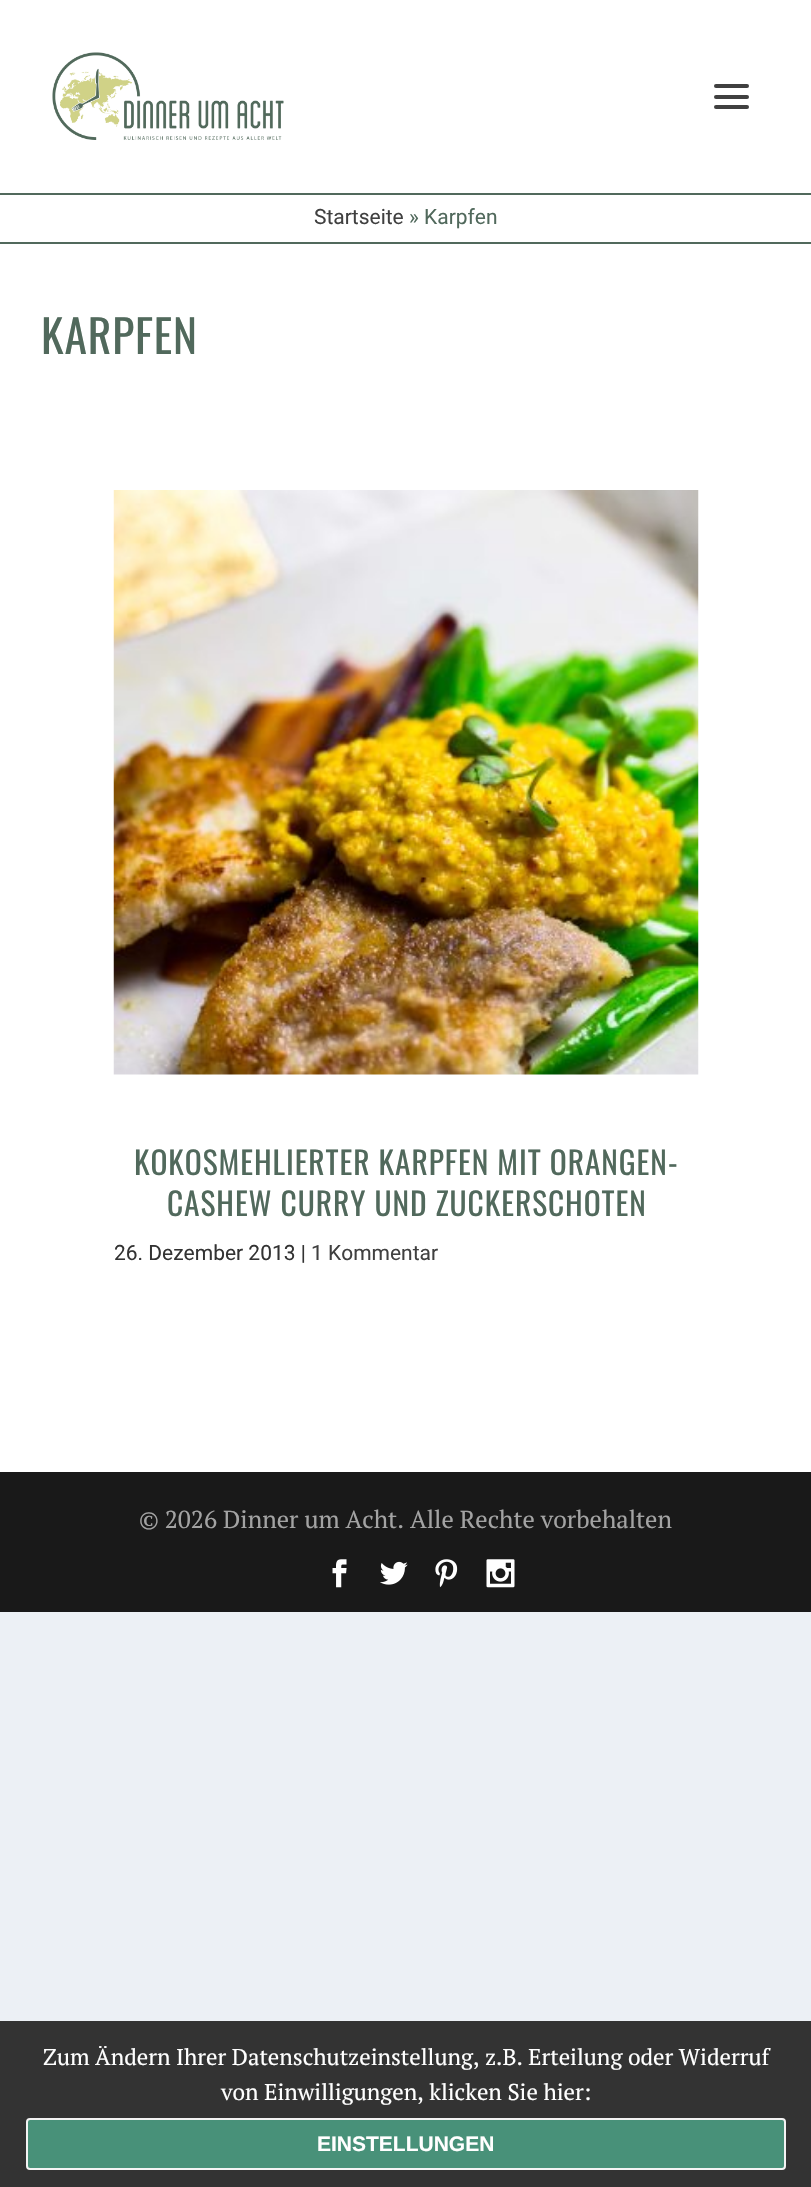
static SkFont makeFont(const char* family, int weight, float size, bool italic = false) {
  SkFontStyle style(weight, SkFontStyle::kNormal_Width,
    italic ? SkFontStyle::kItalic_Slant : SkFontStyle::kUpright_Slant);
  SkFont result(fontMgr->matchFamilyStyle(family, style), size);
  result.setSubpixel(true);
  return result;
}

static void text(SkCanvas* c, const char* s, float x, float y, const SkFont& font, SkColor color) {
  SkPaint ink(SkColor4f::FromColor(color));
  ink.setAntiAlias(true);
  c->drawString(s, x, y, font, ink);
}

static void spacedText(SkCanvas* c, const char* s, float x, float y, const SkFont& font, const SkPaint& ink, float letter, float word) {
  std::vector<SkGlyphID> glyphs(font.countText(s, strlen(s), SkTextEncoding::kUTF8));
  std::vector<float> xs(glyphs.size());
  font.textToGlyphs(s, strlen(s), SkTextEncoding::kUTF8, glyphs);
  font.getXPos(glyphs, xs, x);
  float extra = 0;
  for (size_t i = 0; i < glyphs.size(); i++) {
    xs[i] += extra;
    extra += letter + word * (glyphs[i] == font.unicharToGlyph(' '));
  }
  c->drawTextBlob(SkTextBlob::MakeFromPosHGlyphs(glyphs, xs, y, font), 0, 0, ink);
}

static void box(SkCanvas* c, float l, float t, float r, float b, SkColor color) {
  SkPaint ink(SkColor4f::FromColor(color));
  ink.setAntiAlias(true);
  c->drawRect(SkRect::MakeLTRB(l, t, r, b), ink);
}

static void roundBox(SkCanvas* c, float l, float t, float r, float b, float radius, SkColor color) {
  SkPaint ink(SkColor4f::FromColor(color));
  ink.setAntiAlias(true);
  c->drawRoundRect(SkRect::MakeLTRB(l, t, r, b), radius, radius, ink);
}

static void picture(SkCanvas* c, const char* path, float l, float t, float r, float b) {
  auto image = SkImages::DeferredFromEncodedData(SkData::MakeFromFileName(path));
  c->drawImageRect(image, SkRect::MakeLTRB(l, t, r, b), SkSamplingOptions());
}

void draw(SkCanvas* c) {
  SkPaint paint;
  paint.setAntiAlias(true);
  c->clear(0xffecf0f5);
  box(c, 0, 0, 811, 1472, 0xffffffff);
  picture(c, "img_01.png", 52, 52, 284, 140);
  roundBox(c, 714, 84, 749, 88, 2, 0xff404040);
  roundBox(c, 714, 95, 749, 99, 2, 0xff404040);
  roundBox(c, 714, 105, 749, 109, 2, 0xff404040);
  box(c, 0, 193, 811, 195, 0xff51695c);
  box(c, 0, 242, 811, 244, 0xff51695c);
  SkFont face1 = makeFont("Roboto", 400, 21);
  text(c, "Startseite", 314, 224, face1, 0xff404040);
  text(c, "» Karpfen", 409, 224, face1, 0xff51695c);
  SkFont face2 = makeFont("Oswald", 400, 45.5f);
  paint.setColor(0xff51695c);
  spacedText(c, "KARPFEN", 41, 354, face2, paint, 0.9f, 0);
  picture(c, "img_02.png", 113, 490, 699, 1075);
  SkFont face3 = makeFont("Oswald", 400, 31.5f);
  spacedText(c, "KOKOSMEHLIERTER KARPFEN MIT ORANGEN-", 134, 1175, face3, paint, 0.9f, 0);
  spacedText(c, "CASHEW CURRY UND ZUCKERSCHOTEN", 167, 1216, face3, paint, 0.9f, 0);
  text(c, "26. Dezember 2013 |", 114, 1260, face1, 0xff333333);
  text(c, "1 Kommentar", 311, 1260, face1, 0xff404040);
  box(c, 0, 1472, 811, 1612, 0xff191919);
  SkFont face4 = makeFont("PT Serif", 400, 24.5f);
  text(c, "© 2026 Dinner um Acht. Alle Rechte vorbehalten", 139, 1528, face4, 0xffa3a3a3);
  picture(c, "img_03.png", 332, 1559, 347, 1588);
  picture(c, "img_04.png", 380, 1561, 408, 1585);
  picture(c, "img_05.png", 435, 1559, 458, 1588);
  picture(c, "img_06.png", 486, 1559, 515, 1588);
  box(c, 0, 2021, 811, 2187, 0xff333333);
  SkFont face5 = makeFont("PT Serif", 400, 22.75f);
  text(c, "Zum Ändern Ihrer Datenschutzeinstellung, z.B. Erteilung oder Widerruf", 43, 2065, face5, 0xffffffff);
  text(c, "von Einwilligungen, klicken Sie hier:", 221, 2100, face5, 0xffffffff);
  paint.setColor(0xff489179);
  c->drawRoundRect(SkRect::MakeLTRB(27, 2119, 785, 2169), 3, 3, paint);
  paint.setStyle(SkPaint::kStroke_Style);
  paint.setStrokeWidth(2);
  paint.setColor(0xfff3f3f3);
  c->drawRoundRect(SkRect::MakeLTRB(27, 2119, 785, 2169), 3, 3, paint);
  SkFont face6 = makeFont("Liberation Sans", 700, 21);
  text(c, "EINSTELLUNGEN", 317, 2151, face6, 0xffffffff);
}
